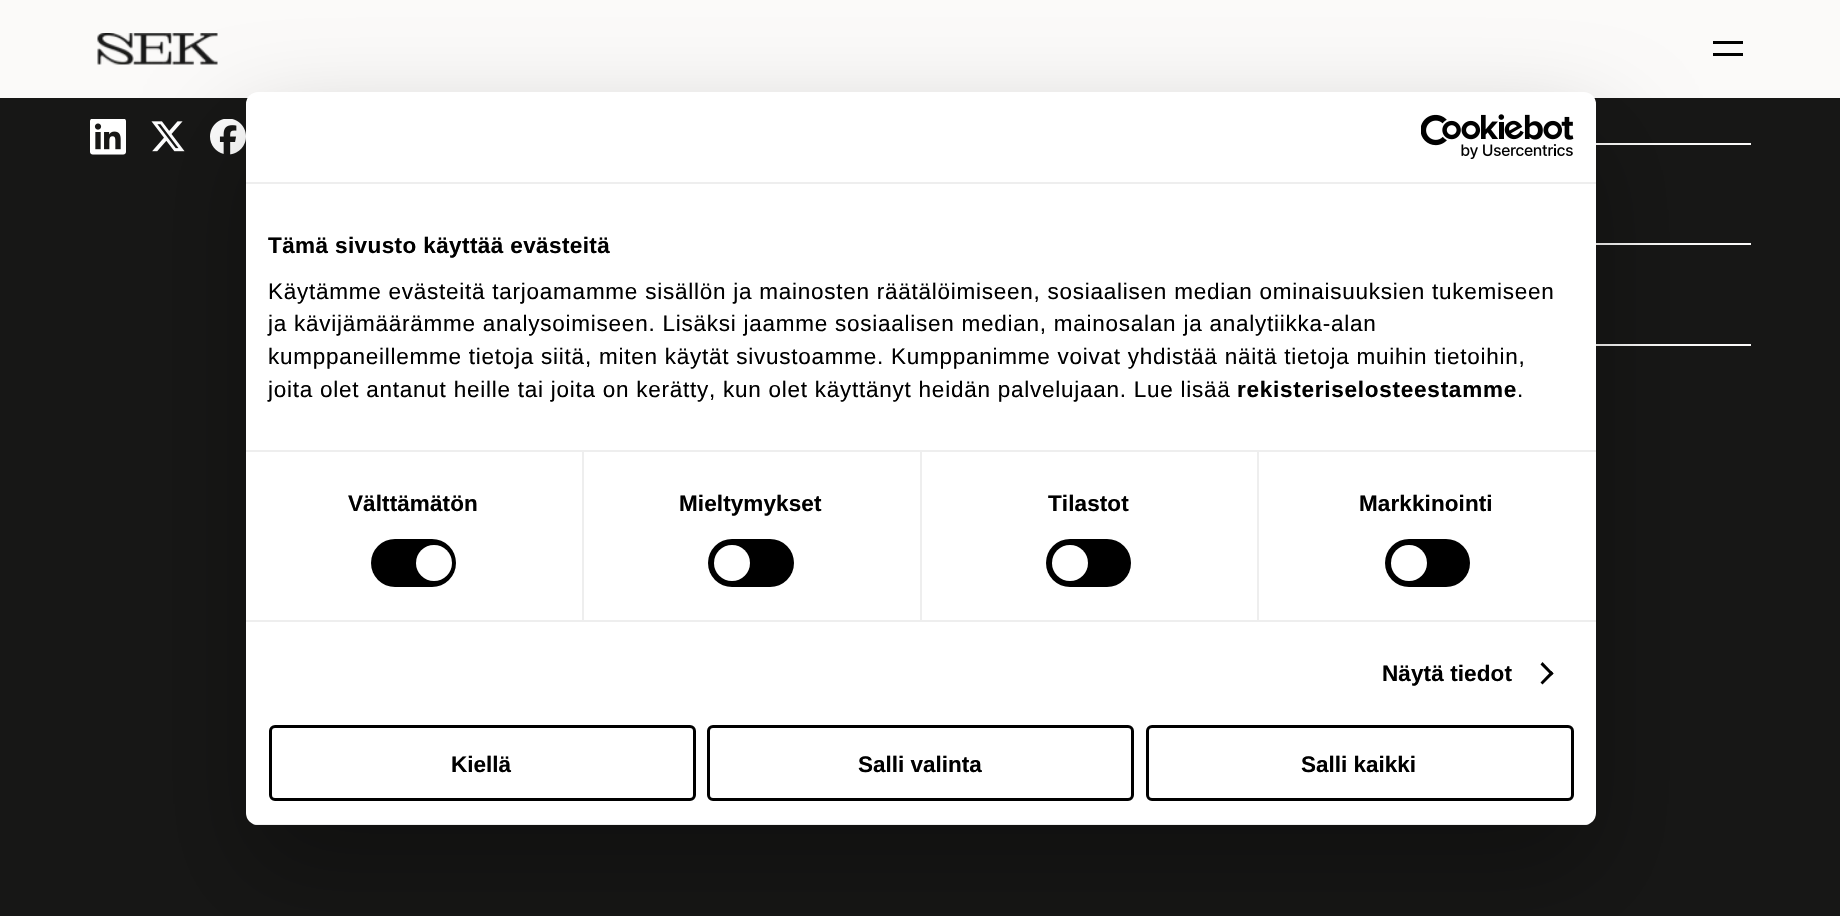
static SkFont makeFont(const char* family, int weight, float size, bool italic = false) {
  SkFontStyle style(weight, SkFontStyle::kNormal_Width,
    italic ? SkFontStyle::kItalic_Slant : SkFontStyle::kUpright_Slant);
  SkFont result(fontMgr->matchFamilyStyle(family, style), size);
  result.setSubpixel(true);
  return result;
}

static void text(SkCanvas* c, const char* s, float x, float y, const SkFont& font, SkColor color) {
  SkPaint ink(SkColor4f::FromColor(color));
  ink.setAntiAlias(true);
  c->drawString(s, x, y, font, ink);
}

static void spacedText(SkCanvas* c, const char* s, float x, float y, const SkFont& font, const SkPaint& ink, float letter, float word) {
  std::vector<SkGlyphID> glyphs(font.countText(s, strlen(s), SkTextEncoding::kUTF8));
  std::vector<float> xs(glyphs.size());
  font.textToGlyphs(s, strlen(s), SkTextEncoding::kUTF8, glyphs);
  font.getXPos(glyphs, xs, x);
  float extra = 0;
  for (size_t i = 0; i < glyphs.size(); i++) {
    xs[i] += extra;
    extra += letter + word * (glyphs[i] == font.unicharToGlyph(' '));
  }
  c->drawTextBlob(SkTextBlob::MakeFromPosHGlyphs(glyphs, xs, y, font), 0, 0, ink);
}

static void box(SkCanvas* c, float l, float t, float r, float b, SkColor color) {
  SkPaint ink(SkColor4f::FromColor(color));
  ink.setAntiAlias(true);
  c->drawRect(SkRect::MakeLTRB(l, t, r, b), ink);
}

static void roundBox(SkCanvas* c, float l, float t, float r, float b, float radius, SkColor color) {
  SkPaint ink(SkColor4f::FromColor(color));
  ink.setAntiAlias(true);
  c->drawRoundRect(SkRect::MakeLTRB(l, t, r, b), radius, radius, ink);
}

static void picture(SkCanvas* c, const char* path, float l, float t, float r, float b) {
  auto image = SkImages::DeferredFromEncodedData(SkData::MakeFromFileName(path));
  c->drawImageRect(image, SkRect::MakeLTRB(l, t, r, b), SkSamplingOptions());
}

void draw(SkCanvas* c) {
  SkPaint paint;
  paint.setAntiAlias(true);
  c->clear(0xff171716);
  box(c, 0, 0, 1840, 98, 0xfffbfaf9);
  picture(c, "img_01.png", 97, 33, 218, 65);
  box(c, 1713, 41, 1743, 44, 0xff000000);
  box(c, 1713, 53, 1743, 56, 0xff000000);
  picture(c, "img_02.png", 90, 119, 126, 155);
  picture(c, "img_03.png", 151, 121, 185, 152);
  picture(c, "img_04.png", 210, 119, 246, 155);
  box(c, 1596, 143, 1751, 145, 0xfffbfaf9);
  box(c, 1596, 243, 1751, 245, 0xfffbfaf9);
  box(c, 1596, 344, 1751, 346, 0xfffbfaf9);
  paint.setColor(0x4d000000);
  paint.setMaskFilter(SkMaskFilter::MakeBlur(kNormal_SkBlurStyle, 51));
  c->drawRoundRect(SkRect::MakeLTRB(246, 140, 1596, 873), 12, 12, paint);
  paint.setMaskFilter(nullptr);
  roundBox(c, 246, 92, 1596, 825, 12, 0xffffffff);
  box(c, 246, 182, 1596, 184, 0xffeeeeee);
  picture(c, "img_05.png", 1421, 114, 1574, 159);
  box(c, 246, 450, 1596, 452, 0xffeeeeee);
  SkFont face1 = makeFont("Liberation Sans", 700, 22.5f);
  paint.setColor(0xff000000);
  spacedText(c, "Tämä sivusto käyttää evästeitä", 268, 253, face1, paint, 0.4f, 0);
  SkFont face2 = makeFont("Liberation Sans", 400, 22.5f);
  spacedText(c, "Käytämme evästeitä tarjoamamme sisällön ja mainosten räätälöimiseen, sosiaalisen median ominaisuuksien tukemiseen", 268, 299, face2, paint, 0.75f, 0);
  spacedText(c, "ja kävijämäärämme analysoimiseen. Lisäksi jaamme sosiaalisen median, mainosalan ja analytiikka-alan", 268, 331, face2, paint, 0.75f, 0);
  spacedText(c, "kumppaneillemme tietoja siitä, miten käytät sivustoamme. Kumppanimme voivat yhdistää näitä tietoja muihin tietoihin,", 268, 364, face2, paint, 0.75f, 0);
  spacedText(c, "joita olet antanut heille tai joita on kerätty, kun olet käyttänyt heidän palvelujaan. Lue lisää", 268, 397, face2, paint, 0.75f, 0);
  spacedText(c, "rekisteriselosteestamme", 1237, 397, face1, paint, 0.75f, 0);
  spacedText(c, ".", 1517, 397, face2, paint, 0.75f, 0);
  box(c, 246, 620, 1596, 622, 0xffeeeeee);
  box(c, 582, 452, 584, 620, 0xffeeeeee);
  spacedText(c, "Välttämätön", 348, 511, face1, paint, 0.1f, 0);
  roundBox(c, 371, 539, 456, 587, 24, 0xff000000);
  paint.setColor(0xffffffff);
  c->drawCircle(434, 563, 18, paint);
  box(c, 920, 452, 922, 620, 0xffeeeeee);
  paint.setColor(0xff000000);
  spacedText(c, "Mieltymykset", 679, 511, face1, paint, 0.1f, 0);
  roundBox(c, 708, 539, 794, 587, 24, 0xff000000);
  paint.setColor(0xffffffff);
  c->drawCircle(732, 563, 18, paint);
  box(c, 1257, 452, 1259, 620, 0xffeeeeee);
  paint.setColor(0xff000000);
  spacedText(c, "Tilastot", 1048, 511, face1, paint, 0.1f, 0);
  roundBox(c, 1046, 539, 1131, 587, 24, 0xff000000);
  paint.setColor(0xffffffff);
  c->drawCircle(1070, 563, 18, paint);
  paint.setColor(0xff000000);
  spacedText(c, "Markkinointi", 1359, 511, face1, paint, 0.1f, 0);
  roundBox(c, 1385, 539, 1470, 587, 24, 0xff000000);
  paint.setColor(0xffffffff);
  c->drawCircle(1409, 563, 18, paint);
  paint.setColor(0xff000000);
  spacedText(c, "Näytä tiedot", 1382, 681, face1, paint, 0.1f, 0);
  c->drawPath(SkPathBuilder().moveTo(1542.5f, 662).lineTo(1553.5f, 673.5f).lineTo(1551.5f, 675.5f).lineTo(1540.5f, 664.5f).close().detach(), paint);
  c->drawPath(SkPathBuilder().moveTo(1551.5f, 671).lineTo(1553.5f, 673.5f).lineTo(1542.5f, 684.5f).lineTo(1540.5f, 682.5f).close().detach(), paint);
  c->save();
  c->clipPath(SkPathBuilder().moveTo(258, 92).lineTo(1584, 92).cubicTo(1590.5f, 92, 1596, 97.5f, 1596, 104).lineTo(1596, 813).cubicTo(1596, 819.5f, 1590.5f, 825, 1584, 825).lineTo(258, 825).cubicTo(251.5f, 825, 246, 819.5f, 246, 813).lineTo(246, 104).cubicTo(246, 97.5f, 251.5f, 92, 258, 92).close().detach(), true);
  box(c, 246, 824, 1596, 825, 0xffeeeeee);
  c->restore();
  paint.setStyle(SkPaint::kStroke_Style);
  paint.setStrokeWidth(3);
  c->drawRoundRect(SkRect::MakeLTRB(270.5f, 726.5f, 694.5f, 799.5f), 4.5f, 4.5f, paint);
  text(c, "Kiellä", 451, 772, face1, 0xff000000);
  c->drawRoundRect(SkRect::MakeLTRB(708.5f, 726.5f, 1132.5f, 799.5f), 4.5f, 4.5f, paint);
  text(c, "Salli valinta", 858, 772, face1, 0xff000000);
  c->drawRoundRect(SkRect::MakeLTRB(1147.5f, 726.5f, 1572.5f, 799.5f), 4.5f, 4.5f, paint);
  text(c, "Salli kaikki", 1301, 772, face1, 0xff000000);
}
